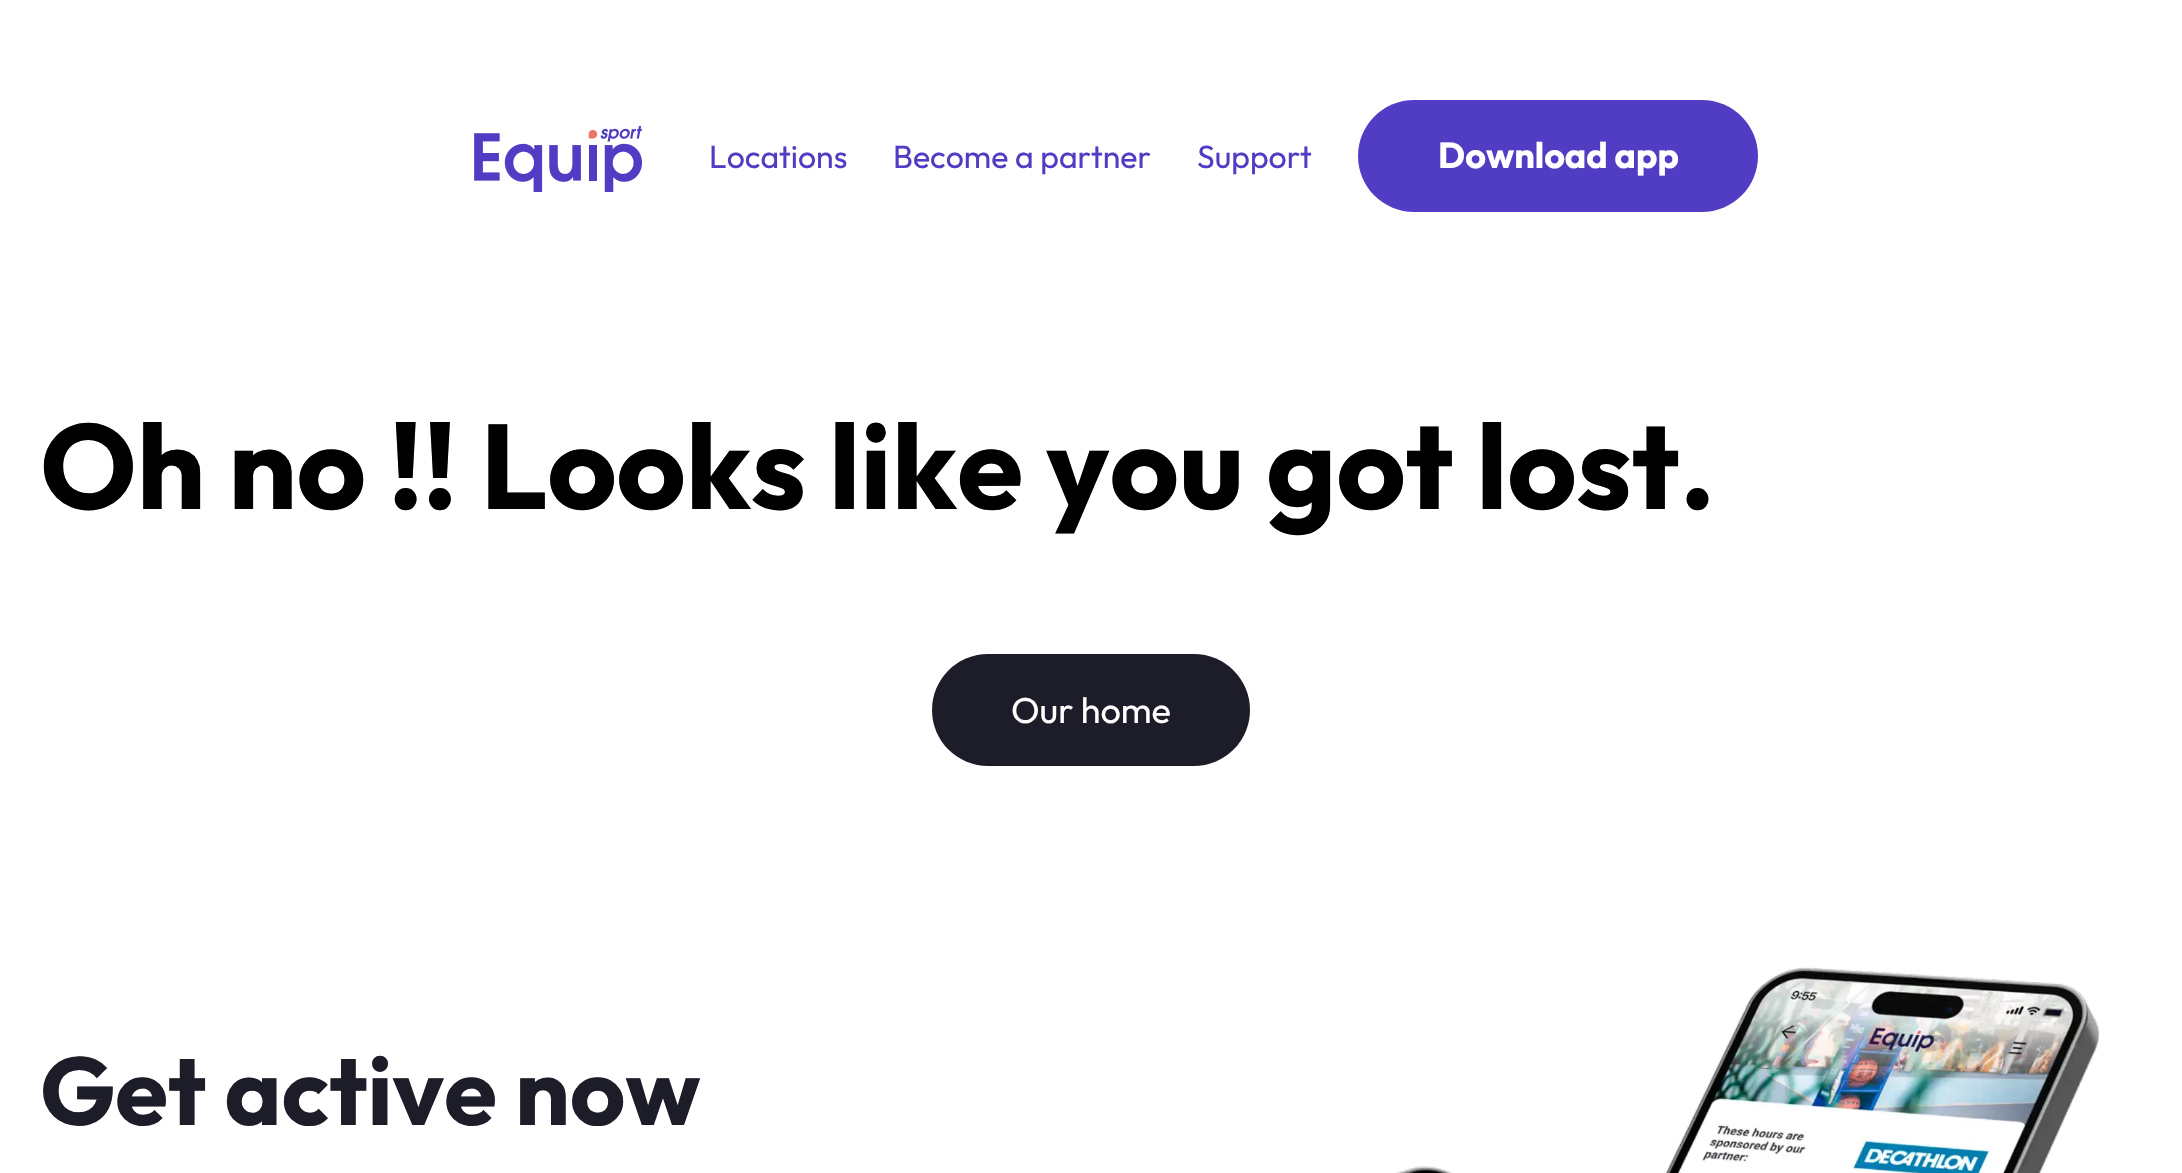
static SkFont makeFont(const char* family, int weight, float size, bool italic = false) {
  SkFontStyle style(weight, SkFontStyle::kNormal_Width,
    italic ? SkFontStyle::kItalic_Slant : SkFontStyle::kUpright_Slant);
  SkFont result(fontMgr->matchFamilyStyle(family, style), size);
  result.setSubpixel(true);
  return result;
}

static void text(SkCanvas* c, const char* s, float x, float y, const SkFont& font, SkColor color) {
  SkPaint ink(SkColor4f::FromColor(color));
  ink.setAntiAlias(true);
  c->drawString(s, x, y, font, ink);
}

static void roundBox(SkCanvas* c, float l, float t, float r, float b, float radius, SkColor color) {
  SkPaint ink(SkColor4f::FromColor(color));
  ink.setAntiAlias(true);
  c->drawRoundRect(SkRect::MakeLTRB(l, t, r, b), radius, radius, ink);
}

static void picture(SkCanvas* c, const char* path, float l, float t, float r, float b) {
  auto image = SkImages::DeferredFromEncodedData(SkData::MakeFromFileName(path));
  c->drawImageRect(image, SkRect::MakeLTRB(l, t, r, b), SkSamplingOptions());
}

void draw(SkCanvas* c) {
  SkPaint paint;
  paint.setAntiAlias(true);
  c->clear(0xffffffff);
  picture(c, "img_01.png", 474, 126, 642, 192);
  SkFont face1 = makeFont("Outfit", 400, 32);
  text(c, "Locations", 709, 168, face1, 0xff513dc4);
  text(c, "Become a partner", 893, 168, face1, 0xff513dc4);
  text(c, "Support", 1197, 168, face1, 0xff513dc4);
  roundBox(c, 1358, 100, 1758, 212, 56, 0xff513dc4);
  SkFont face2 = makeFont("Outfit", 700, 36);
  text(c, "Download app", 1438, 168, face2, 0xffffffff);
  SkFont face3 = makeFont("Outfit", 700, 120);
  text(c, "Oh no !! Looks like you got lost.", 40, 509, face3, 0xff000000);
  roundBox(c, 932, 654, 1250, 766, 56, 0xff1c1d28);
  SkFont face4 = makeFont("Outfit", 400, 36);
  text(c, "Our home", 1011, 723, face4, 0xffffffff);
  SkFont face5 = makeFont("Outfit", 700, 96);
  text(c, "Get active now", 40, 1125, face5, 0xff1c1d28);
  picture(c, "img_02.png", 1395, 967, 2100, 1173);
}
